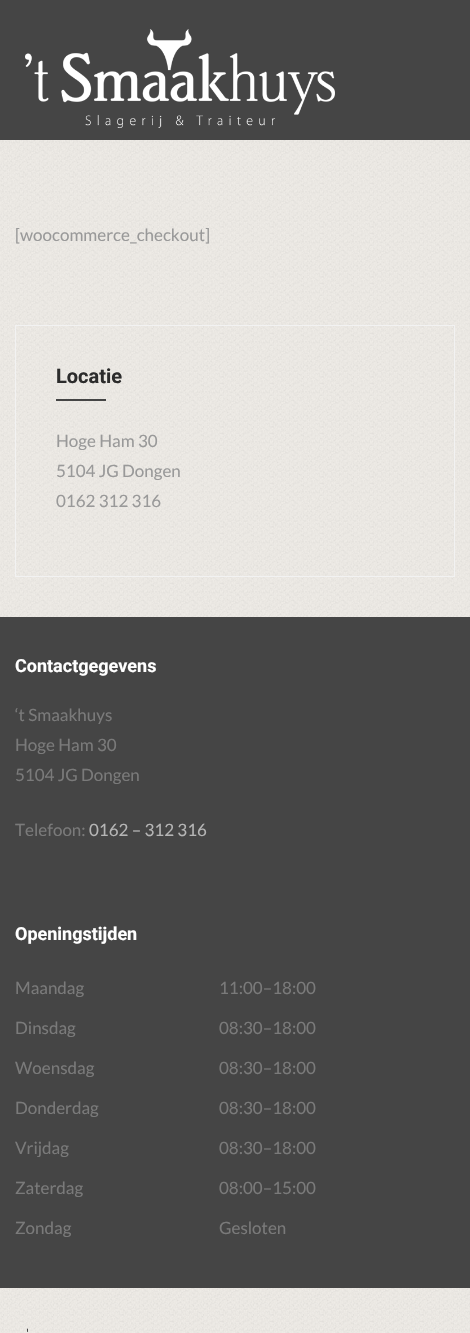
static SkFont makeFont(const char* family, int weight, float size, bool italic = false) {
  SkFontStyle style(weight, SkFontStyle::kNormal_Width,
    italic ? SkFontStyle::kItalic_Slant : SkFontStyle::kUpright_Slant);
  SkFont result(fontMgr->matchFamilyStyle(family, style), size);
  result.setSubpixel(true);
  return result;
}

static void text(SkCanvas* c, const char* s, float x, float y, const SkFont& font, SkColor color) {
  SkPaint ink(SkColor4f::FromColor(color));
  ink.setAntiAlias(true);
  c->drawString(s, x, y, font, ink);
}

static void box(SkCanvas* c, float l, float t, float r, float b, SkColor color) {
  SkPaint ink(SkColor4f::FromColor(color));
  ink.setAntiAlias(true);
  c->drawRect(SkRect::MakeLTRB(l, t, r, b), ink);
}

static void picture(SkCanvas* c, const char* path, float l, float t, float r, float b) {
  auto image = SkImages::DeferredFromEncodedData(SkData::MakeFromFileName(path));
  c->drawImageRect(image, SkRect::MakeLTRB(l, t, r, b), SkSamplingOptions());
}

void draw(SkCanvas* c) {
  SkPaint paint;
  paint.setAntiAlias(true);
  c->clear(0xffffffff);
  picture(c, "img_01.png", 0, 140, 470, 617);
  box(c, 0, 0, 470, 140, 0xff454545);
  picture(c, "img_02.png", 25, 29, 335, 128);
  SkFont face1 = makeFont("Lato", 400, 17);
  text(c, "[woocommerce_checkout]", 15, 241, face1, 0xff999999);
  paint.setStyle(SkPaint::kStroke_Style);
  paint.setStrokeWidth(1);
  paint.setColor(0xfff2f2f2);
  c->drawRect(SkRect::MakeLTRB(15.5f, 325.5f, 454.5f, 576.5f), paint);
  SkFont face2 = makeFont("Roboto", 700, 20);
  text(c, "Locatie", 56, 383, face2, 0xff2c2c2c);
  box(c, 56, 399, 106, 401, 0xff454545);
  text(c, "Hoge Ham 30", 56, 447, face1, 0xff999999);
  text(c, "5104 JG Dongen", 56, 477, face1, 0xff999999);
  text(c, "0162 312 316", 56, 507, face1, 0xff999999);
  box(c, 0, 617, 470, 1288, 0xff454545);
  SkFont face3 = makeFont("Roboto", 700, 18);
  text(c, "Contactgegevens", 15, 672, face3, 0xffffffff);
  text(c, "‘t Smaakhuys", 15, 721, face1, 0xff7a7a7a);
  text(c, "Hoge Ham 30", 15, 751, face1, 0xff7a7a7a);
  text(c, "5104 JG Dongen", 15, 781, face1, 0xff7a7a7a);
  text(c, "Telefoon:", 15, 836, face1, 0xff7a7a7a);
  text(c, "0162 – 312 316", 89, 836, face1, 0xffb5b5b5);
  text(c, "Openingstijden", 15, 940, face3, 0xffffffff);
  text(c, "Maandag", 15, 994, face1, 0xff7a7a7a);
  text(c, "11:00–18:00", 219, 994, face1, 0xff7a7a7a);
  text(c, "Dinsdag", 15, 1034, face1, 0xff7a7a7a);
  text(c, "08:30–18:00", 219, 1034, face1, 0xff7a7a7a);
  text(c, "Woensdag", 15, 1074, face1, 0xff7a7a7a);
  text(c, "08:30–18:00", 219, 1074, face1, 0xff7a7a7a);
  text(c, "Donderdag", 15, 1114, face1, 0xff7a7a7a);
  text(c, "08:30–18:00", 219, 1114, face1, 0xff7a7a7a);
  text(c, "Vrijdag", 15, 1154, face1, 0xff7a7a7a);
  text(c, "08:30–18:00", 219, 1154, face1, 0xff7a7a7a);
  text(c, "Zaterdag", 15, 1194, face1, 0xff7a7a7a);
  text(c, "08:00–15:00", 219, 1194, face1, 0xff7a7a7a);
  text(c, "Zondag", 15, 1234, face1, 0xff7a7a7a);
  text(c, "Gesloten", 219, 1234, face1, 0xff7a7a7a);
  picture(c, "img_03.png", 0, 1288, 470, 1333);
  SkFont face4 = makeFont("Lato", 400, 13);
  text(c, "'", 26, 1338, face4, 0xff454545);
}
